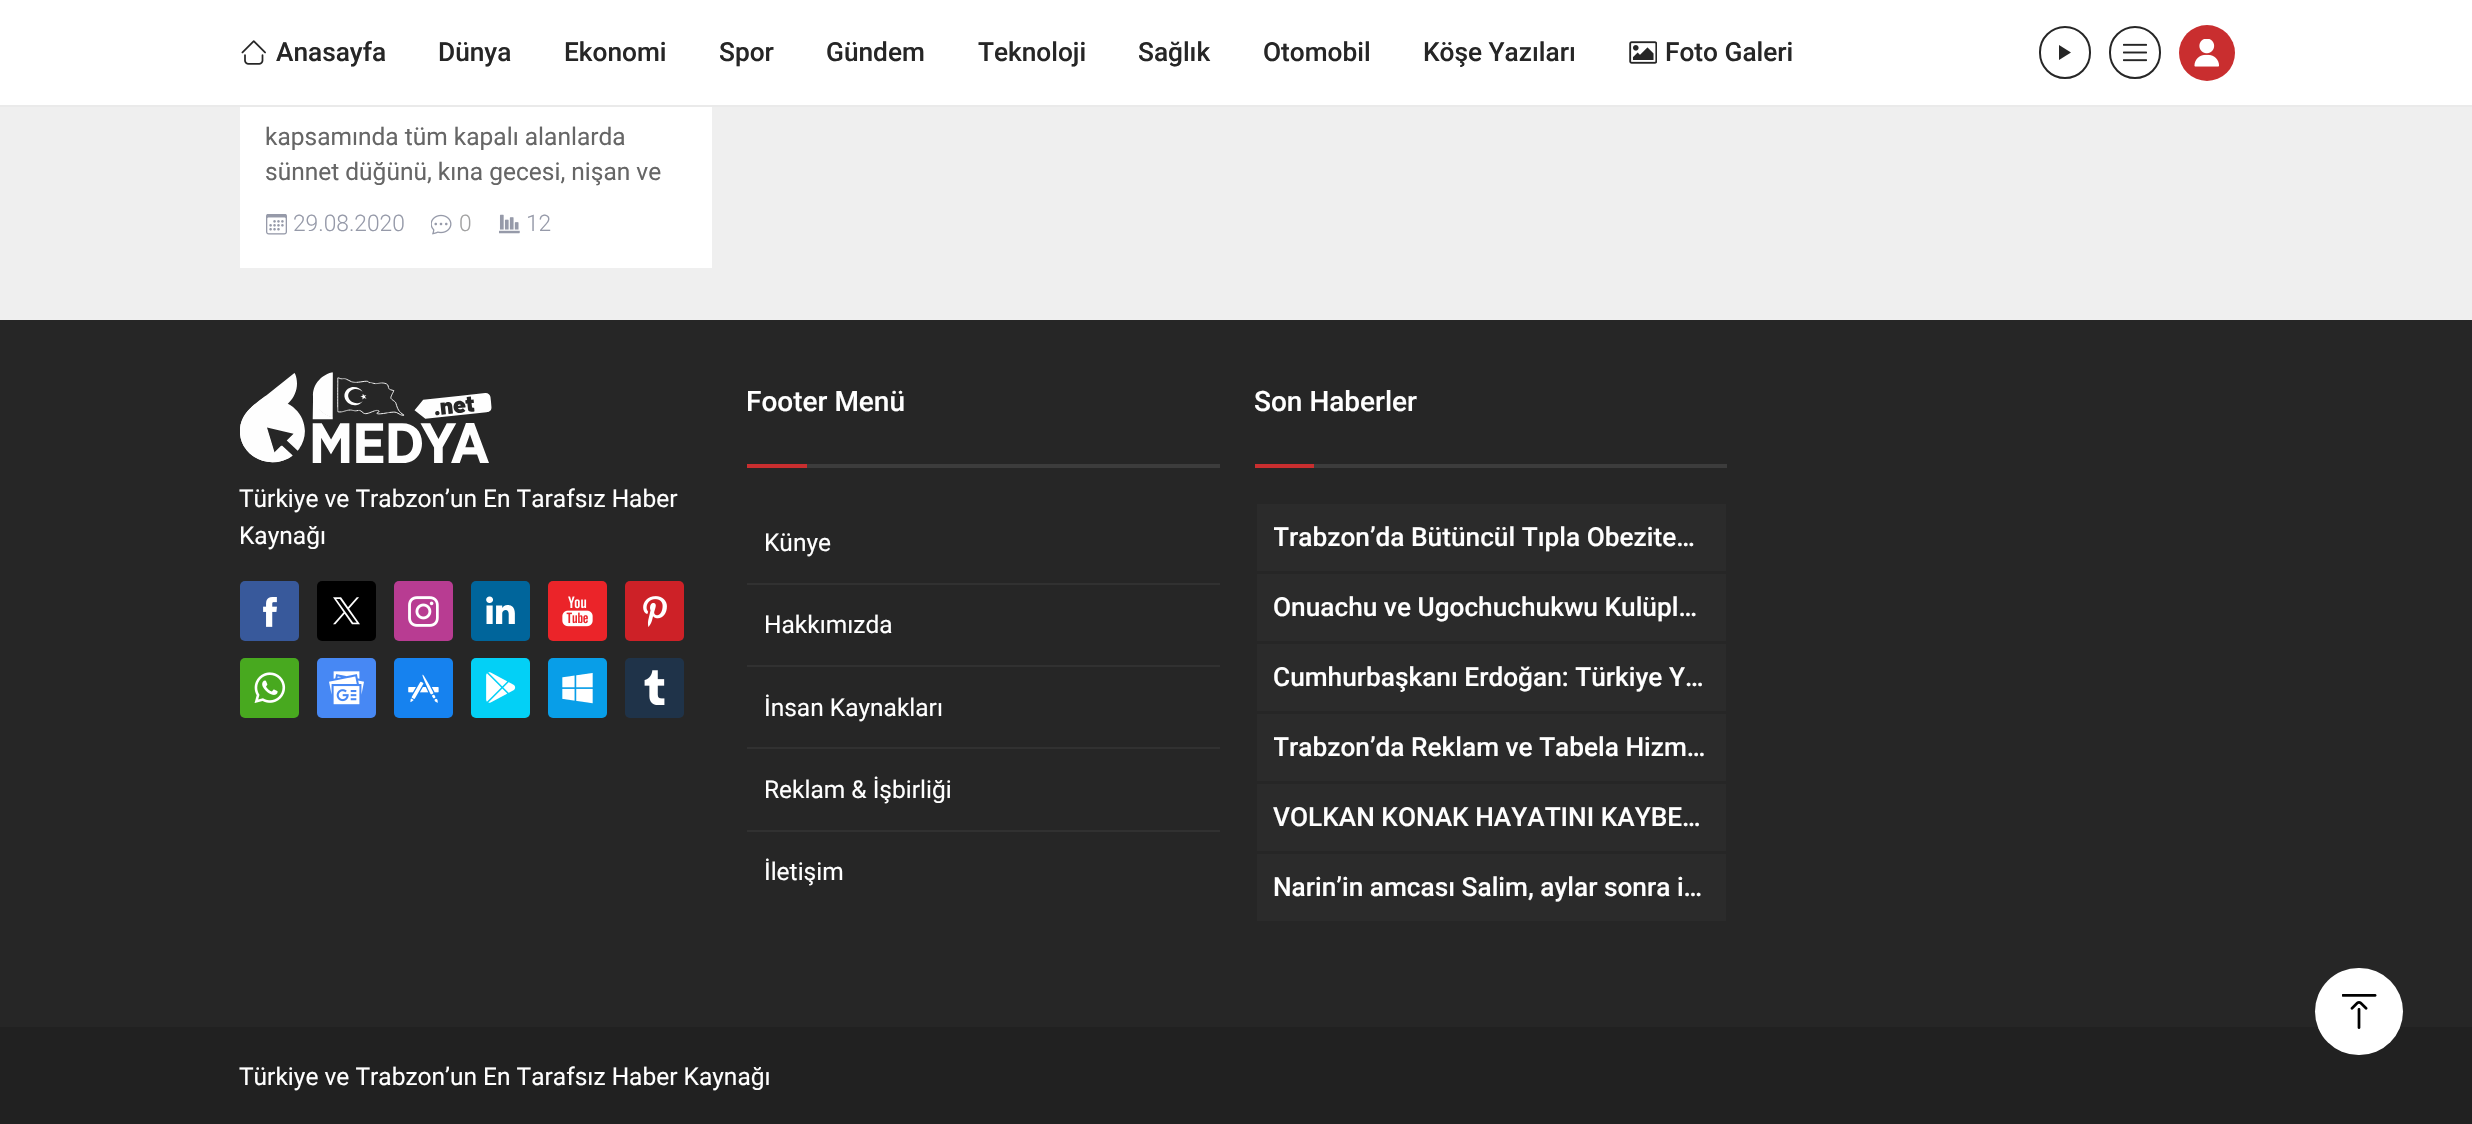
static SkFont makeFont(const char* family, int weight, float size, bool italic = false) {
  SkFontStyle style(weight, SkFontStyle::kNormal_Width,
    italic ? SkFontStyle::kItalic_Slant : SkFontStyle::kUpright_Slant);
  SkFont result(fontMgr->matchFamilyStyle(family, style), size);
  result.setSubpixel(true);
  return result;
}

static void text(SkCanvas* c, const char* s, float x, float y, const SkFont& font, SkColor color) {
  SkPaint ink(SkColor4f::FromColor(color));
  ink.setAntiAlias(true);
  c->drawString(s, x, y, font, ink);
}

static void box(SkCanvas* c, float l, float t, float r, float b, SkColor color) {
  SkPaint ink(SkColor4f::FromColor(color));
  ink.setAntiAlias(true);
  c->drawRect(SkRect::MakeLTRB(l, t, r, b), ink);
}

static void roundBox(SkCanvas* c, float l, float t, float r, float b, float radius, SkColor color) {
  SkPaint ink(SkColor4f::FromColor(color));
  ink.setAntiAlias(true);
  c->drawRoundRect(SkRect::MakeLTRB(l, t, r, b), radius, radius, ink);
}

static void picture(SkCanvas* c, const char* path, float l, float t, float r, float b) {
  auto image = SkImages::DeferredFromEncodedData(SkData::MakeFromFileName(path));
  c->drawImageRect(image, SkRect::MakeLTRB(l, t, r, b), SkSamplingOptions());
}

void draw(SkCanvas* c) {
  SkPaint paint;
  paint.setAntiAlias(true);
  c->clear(0xffefefef);
  box(c, 0, 0, 2472, 105, 0xffffffff);
  box(c, 0, 105, 2472, 107, 0xffeaeaea);
  picture(c, "img_01.png", 241, 40, 266, 65);
  SkFont face1 = makeFont("Roboto", 500, 26.25f);
  text(c, "Anasayfa", 276, 61, face1, 0xff262626);
  text(c, "Dünya", 438, 61, face1, 0xff262626);
  text(c, "Ekonomi", 564, 61, face1, 0xff262626);
  text(c, "Spor", 719, 61, face1, 0xff262626);
  text(c, "Gündem", 826, 61, face1, 0xff262626);
  text(c, "Teknoloji", 978, 61, face1, 0xff262626);
  text(c, "Sağlık", 1138, 61, face1, 0xff262626);
  text(c, "Otomobil", 1263, 61, face1, 0xff262626);
  text(c, "Köşe Yazıları", 1423, 61, face1, 0xff262626);
  picture(c, "img_02.png", 1629, 41, 1657, 64);
  text(c, "Foto Galeri", 1665, 61, face1, 0xff262626);
  paint.setStyle(SkPaint::kStroke_Style);
  paint.setStrokeWidth(2);
  paint.setColor(0xff262626);
  c->drawRoundRect(SkRect::MakeLTRB(2040, 27, 2090, 78), 25, 25, paint);
  paint.setStyle(SkPaint::kFill_Style);
  c->drawPath(SkPathBuilder().moveTo(2059, 45).lineTo(2059, 60).lineTo(2071, 52.5f).close().detach(), paint);
  paint.setStyle(SkPaint::kStroke_Style);
  c->drawRoundRect(SkRect::MakeLTRB(2110, 27, 2160, 78), 25, 25, paint);
  picture(c, "img_03.png", 2123, 43, 2147, 62);
  paint.setStyle(SkPaint::kFill_Style);
  paint.setColor(0xffc92e2f);
  c->drawCircle(2207, 53, 28, paint);
  picture(c, "img_04.png", 2194, 39, 2219, 67);
  box(c, 240, 107, 712, 268, 0xffffffff);
  SkFont face2 = makeFont("Roboto", 400, 24.5f);
  text(c, "kapsamında tüm kapalı alanlarda", 265, 145, face2, 0xff666666);
  text(c, "sünnet düğünü, kına gecesi, nişan ve", 265, 180, face2, 0xff666666);
  picture(c, "img_05.png", 266, 214, 287, 235);
  SkFont face3 = makeFont("Roboto", 300, 22.75f);
  text(c, "29.08.2020", 293, 231, face3, 0xff969aa9);
  picture(c, "img_06.png", 431, 214, 452, 235);
  text(c, "0", 459, 231, face3, 0xffa2a2a2);
  picture(c, "img_07.png", 499, 214, 520, 234);
  text(c, "12", 526, 231, face3, 0xff969aa9);
  box(c, 0, 320, 2472, 1027, 0xff262626);
  picture(c, "img_08.png", 240, 372, 492, 463);
  text(c, "Türkiye ve Trabzon’un En Tarafsız Haber", 239, 507, face2, 0xffffffff);
  text(c, "Kaynağı", 239, 544, face2, 0xffffffff);
  roundBox(c, 240, 581, 299, 641, 5, 0xff38599b);
  picture(c, "img_09.png", 263, 597, 277, 627);
  roundBox(c, 317, 581, 376, 641, 5, 0xff000000);
  picture(c, "img_10.png", 333, 597, 360, 625);
  roundBox(c, 394, 581, 453, 641, 5, 0xffb83c92);
  picture(c, "img_11.png", 408, 596, 439, 627);
  roundBox(c, 471, 581, 530, 641, 5, 0xff00659b);
  picture(c, "img_12.png", 486, 596, 515, 624);
  roundBox(c, 548, 581, 607, 641, 5, 0xffeb2429);
  picture(c, "img_13.png", 562, 596, 593, 627);
  roundBox(c, 625, 581, 684, 641, 5, 0xffcd2127);
  picture(c, "img_14.png", 643, 596, 667, 627);
  roundBox(c, 240, 658, 299, 718, 5, 0xff48a91f);
  picture(c, "img_15.png", 254, 672, 286, 703);
  roundBox(c, 317, 658, 376, 718, 5, 0xff4788f4);
  picture(c, "img_16.png", 329, 671, 364, 705);
  roundBox(c, 394, 658, 453, 718, 5, 0xff1682ef);
  picture(c, "img_17.png", 408, 674, 439, 703);
  roundBox(c, 471, 658, 530, 718, 5, 0xff03d0f6);
  picture(c, "img_18.png", 486, 672, 516, 703);
  roundBox(c, 548, 658, 607, 718, 5, 0xff089ee8);
  picture(c, "img_19.png", 562, 672, 593, 704);
  roundBox(c, 625, 658, 684, 718, 5, 0xff1f3349);
  picture(c, "img_20.png", 644, 670, 665, 705);
  box(c, 807, 464, 1220, 468, 0xff3c3c3c);
  SkFont face4 = makeFont("Roboto", 500, 28);
  text(c, "Footer Menü", 746, 411, face4, 0xffffffff);
  box(c, 747, 464, 807, 468, 0xffc92e2f);
  text(c, "Künye", 764, 551, face2, 0xffffffff);
  box(c, 747, 583, 1220, 585, 0xff313131);
  text(c, "Hakkımızda", 764, 633, face2, 0xffffffff);
  box(c, 747, 665, 1220, 667, 0xff313131);
  text(c, "İnsan Kaynakları", 764, 716, face2, 0xffffffff);
  box(c, 747, 747, 1220, 749, 0xff313131);
  text(c, "Reklam & İşbirliği", 764, 798, face2, 0xffffffff);
  box(c, 747, 830, 1220, 832, 0xff313131);
  text(c, "İletişim", 764, 880, face2, 0xffffffff);
  box(c, 1314, 464, 1727, 468, 0xff3c3c3c);
  text(c, "Son Haberler", 1254, 411, face4, 0xffffffff);
  box(c, 1255, 464, 1314, 468, 0xffc92e2f);
  box(c, 1257, 504, 1726, 571, 0xff2b2b2b);
  c->save();
  c->clipRect(SkRect::MakeLTRB(1274, 522, 1708, 553));
  text(c, "Trabzon’da Bütüncül Tıpla Obezite…", 1273, 546, face1, 0xffffffff);
  c->restore();
  box(c, 1257, 574, 1726, 641, 0xff2b2b2b);
  text(c, "Onuachu ve Ugochuchukwu Kulüpl…", 1273, 616, face1, 0xffffffff);
  box(c, 1257, 644, 1726, 711, 0xff2b2b2b);
  text(c, "Cumhurbaşkanı Erdoğan: Türkiye Y…", 1273, 686, face1, 0xffffffff);
  box(c, 1257, 714, 1726, 781, 0xff2b2b2b);
  c->save();
  c->clipRect(SkRect::MakeLTRB(1274, 732, 1708, 763));
  text(c, "Trabzon’da Reklam ve Tabela Hizm…", 1273, 756, face1, 0xffffffff);
  c->restore();
  box(c, 1257, 784, 1726, 851, 0xff2b2b2b);
  text(c, "VOLKAN KONAK HAYATINI KAYBE…", 1273, 826, face1, 0xffffffff);
  box(c, 1257, 854, 1726, 921, 0xff2b2b2b);
  text(c, "Narin’in amcası Salim, aylar sonra i…", 1273, 896, face1, 0xffffffff);
  box(c, 0, 1027, 2472, 1124, 0xff212121);
  text(c, "Türkiye ve Trabzon’un En Tarafsız Haber Kaynağı", 239, 1085, face2, 0xffffffff);
  roundBox(c, 2315, 968, 2403, 1055, 43.5f, 0xffffffff);
  picture(c, "img_21.png", 2342, 994, 2377, 1029);
}
